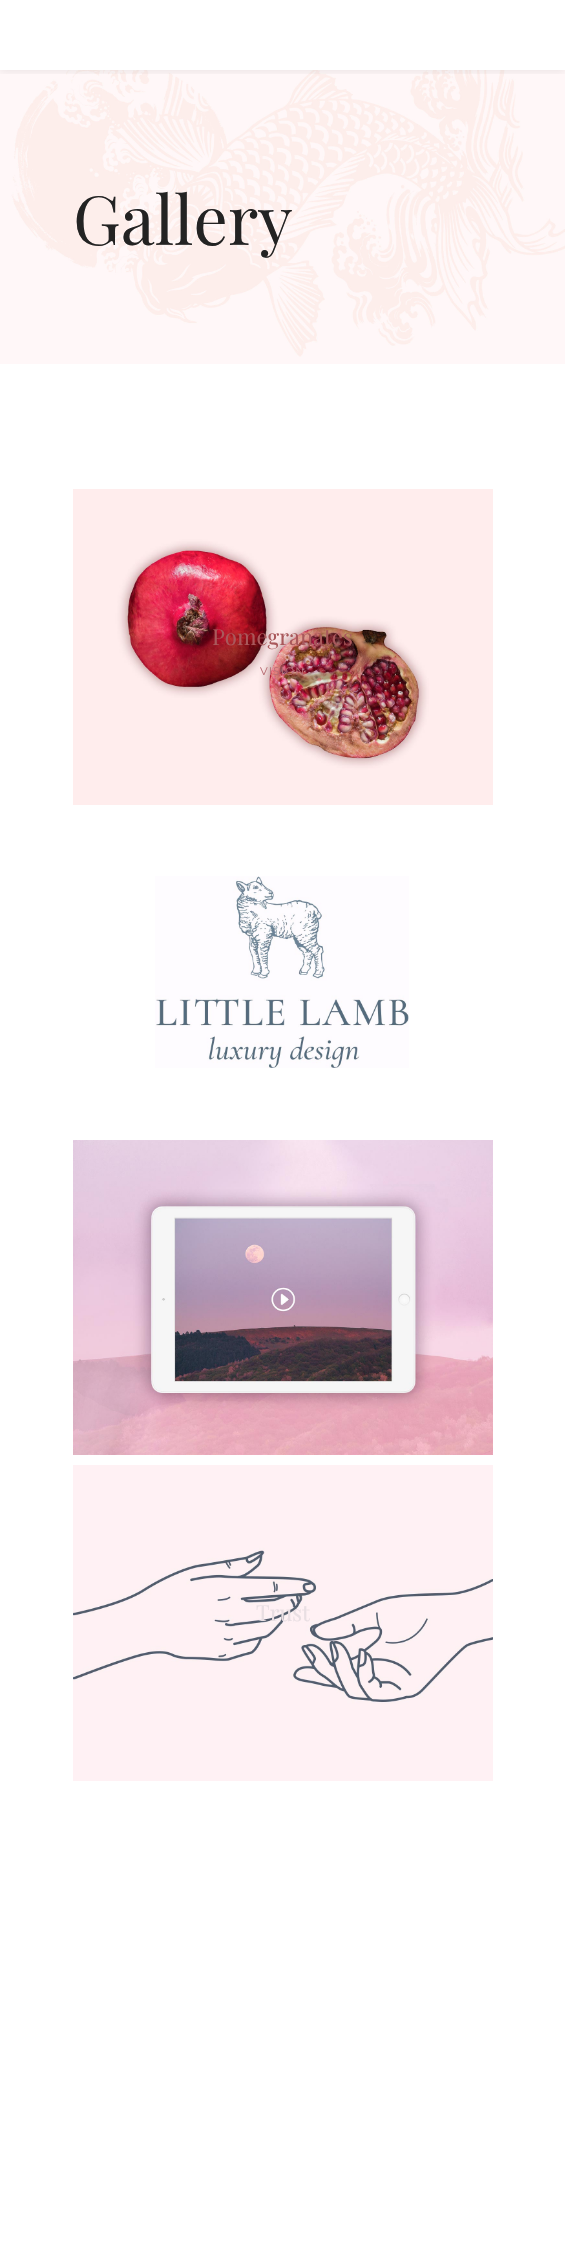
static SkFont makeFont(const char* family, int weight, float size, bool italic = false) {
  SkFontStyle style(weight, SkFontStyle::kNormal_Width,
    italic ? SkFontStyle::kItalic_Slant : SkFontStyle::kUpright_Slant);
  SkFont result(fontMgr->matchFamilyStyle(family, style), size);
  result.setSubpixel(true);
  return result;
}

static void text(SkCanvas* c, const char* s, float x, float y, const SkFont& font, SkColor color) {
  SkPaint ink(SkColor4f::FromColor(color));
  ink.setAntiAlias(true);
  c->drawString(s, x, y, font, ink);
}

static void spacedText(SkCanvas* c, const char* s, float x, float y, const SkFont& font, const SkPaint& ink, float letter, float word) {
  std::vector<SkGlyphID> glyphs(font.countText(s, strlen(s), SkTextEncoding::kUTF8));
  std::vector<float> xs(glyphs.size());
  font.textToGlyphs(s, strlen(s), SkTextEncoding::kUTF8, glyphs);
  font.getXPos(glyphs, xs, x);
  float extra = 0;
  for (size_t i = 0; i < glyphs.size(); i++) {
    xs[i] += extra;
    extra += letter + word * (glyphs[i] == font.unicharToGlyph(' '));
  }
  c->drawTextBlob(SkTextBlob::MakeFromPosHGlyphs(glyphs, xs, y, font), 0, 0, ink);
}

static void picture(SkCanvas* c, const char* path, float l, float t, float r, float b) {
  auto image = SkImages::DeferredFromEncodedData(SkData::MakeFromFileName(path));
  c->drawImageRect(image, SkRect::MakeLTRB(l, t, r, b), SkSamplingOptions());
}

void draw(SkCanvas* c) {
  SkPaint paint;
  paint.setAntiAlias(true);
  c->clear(0xffffffff);
  picture(c, "img_01.png", 0, 70, 565, 364);
  c->save();
  c->clipRect(SkRect::MakeLTRB(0, 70, 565, 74));
  paint.setColor(0x12000000);
  paint.setMaskFilter(SkMaskFilter::MakeBlur(kNormal_SkBlurStyle, 4));
  c->drawRect(SkRect::MakeLTRB(0, 2, 565, 72), paint);
  paint.setMaskFilter(nullptr);
  c->restore();
  SkFont face1 = makeFont("Playfair Display", 400, 68);
  text(c, "Gallery", 73, 245, face1, 0xff232323);
  picture(c, "img_02.png", 73, 489, 493, 805);
  SkFont face2 = makeFont("Playfair Display", 400, 22);
  text(c, "Pomegranates", 212, 645, face2, 0xffa9585b);
  SkFont face3 = makeFont("Montserrat", 400, 11);
  paint.setColor(0xffb86d74);
  spacedText(c, "VISION", 260, 675, face3, paint, 1, 0);
  picture(c, "img_03.png", 155, 876, 409, 1068);
  picture(c, "img_04.png", 73, 1140, 493, 1455);
  picture(c, "img_05.png", 73, 1465, 493, 1781);
  text(c, "Trust", 256, 1621, face2, 0xffe9dfe3);
}
